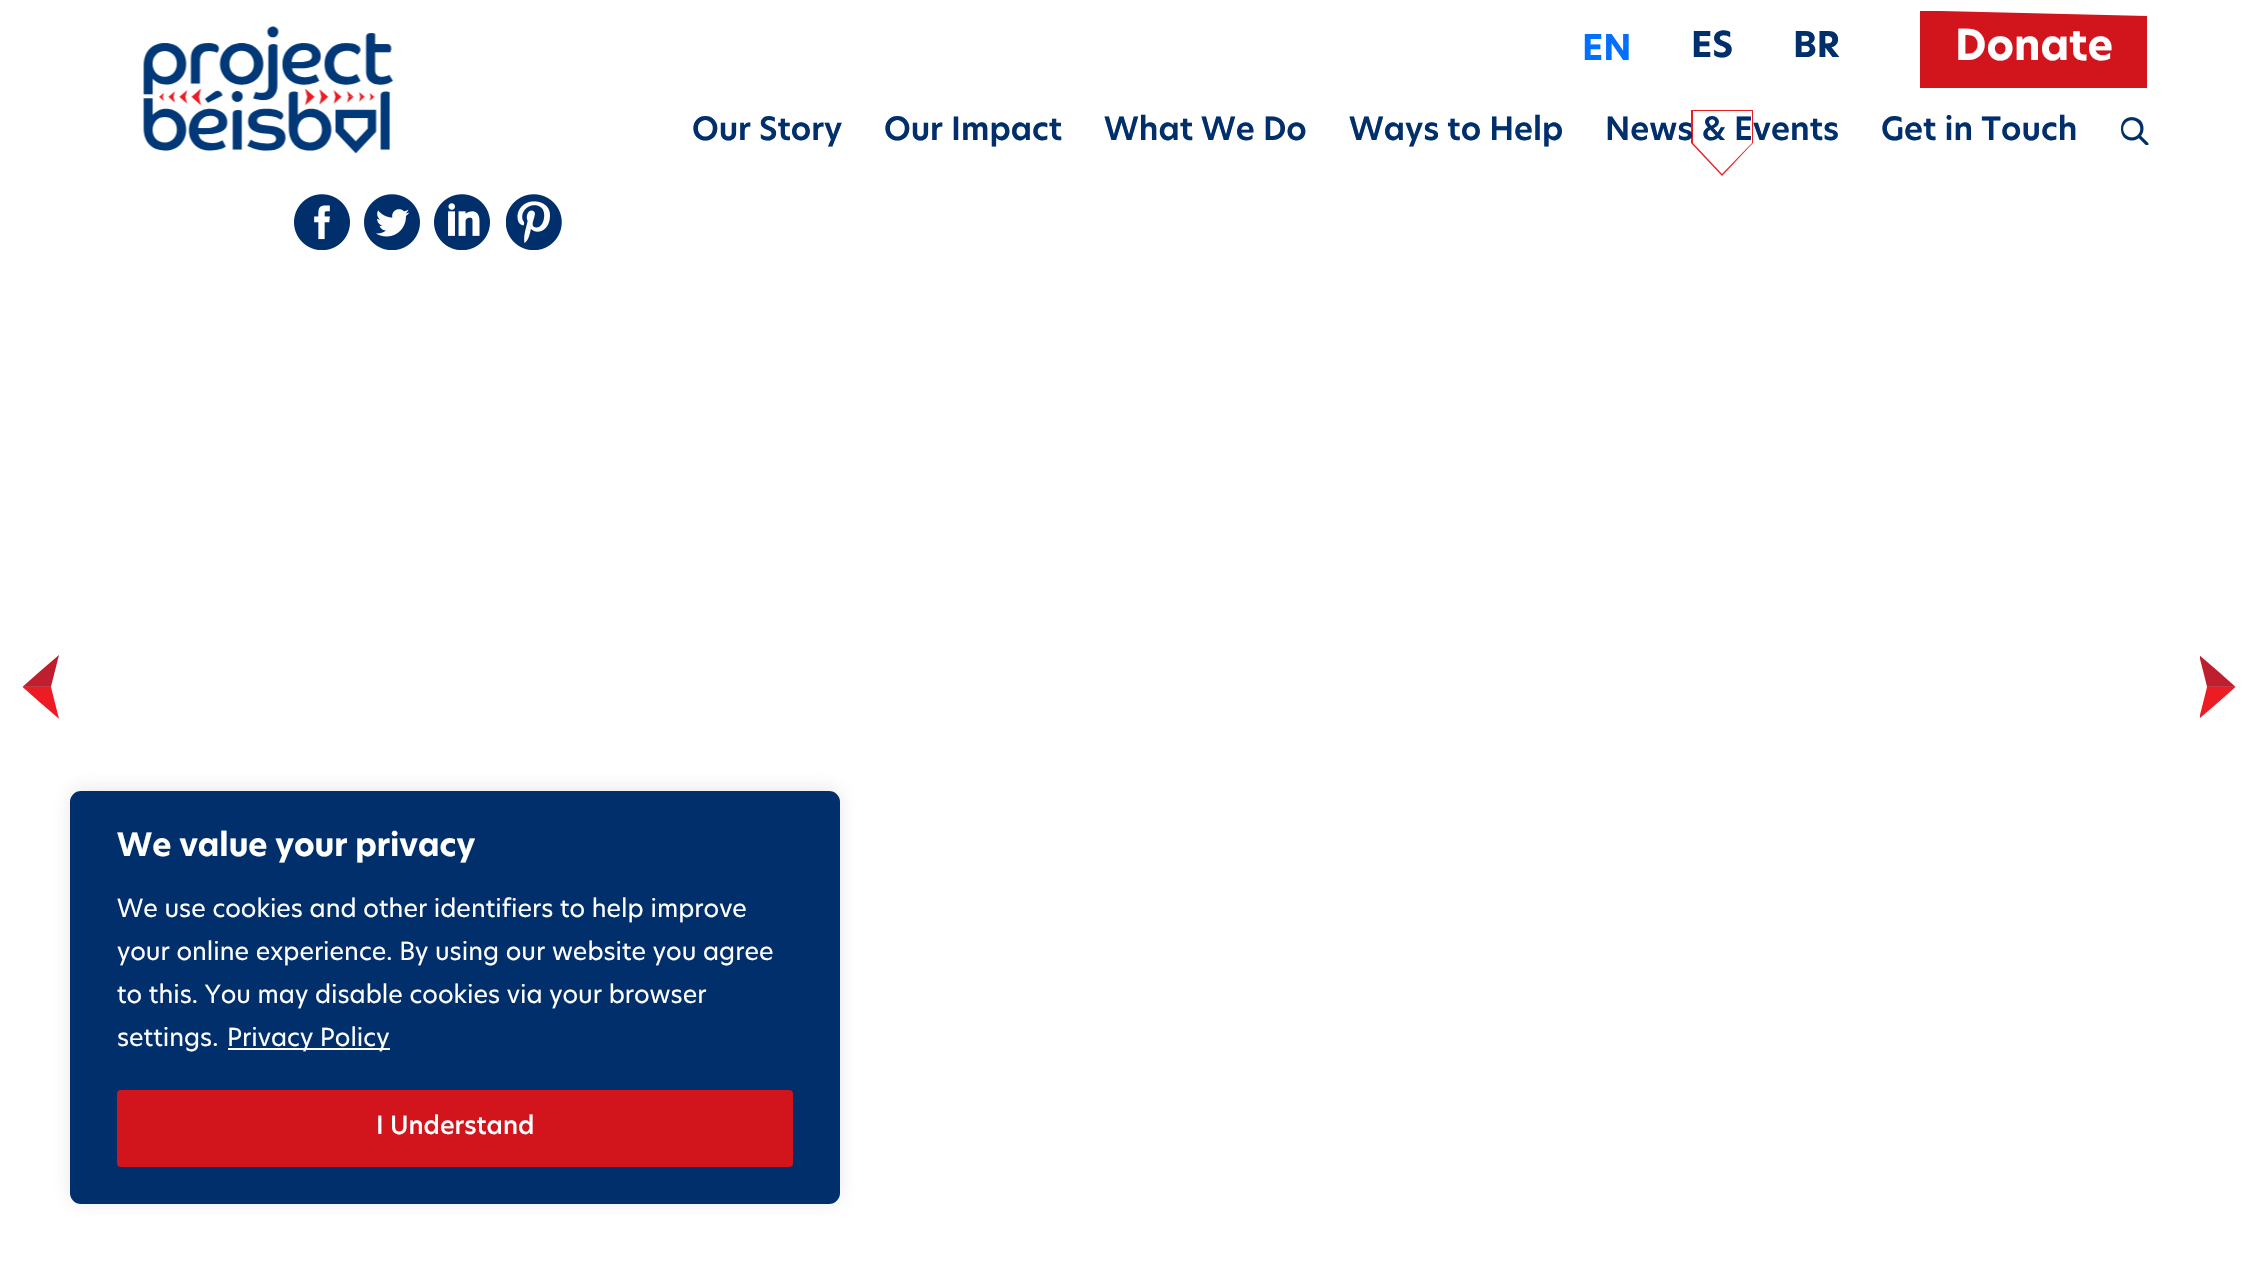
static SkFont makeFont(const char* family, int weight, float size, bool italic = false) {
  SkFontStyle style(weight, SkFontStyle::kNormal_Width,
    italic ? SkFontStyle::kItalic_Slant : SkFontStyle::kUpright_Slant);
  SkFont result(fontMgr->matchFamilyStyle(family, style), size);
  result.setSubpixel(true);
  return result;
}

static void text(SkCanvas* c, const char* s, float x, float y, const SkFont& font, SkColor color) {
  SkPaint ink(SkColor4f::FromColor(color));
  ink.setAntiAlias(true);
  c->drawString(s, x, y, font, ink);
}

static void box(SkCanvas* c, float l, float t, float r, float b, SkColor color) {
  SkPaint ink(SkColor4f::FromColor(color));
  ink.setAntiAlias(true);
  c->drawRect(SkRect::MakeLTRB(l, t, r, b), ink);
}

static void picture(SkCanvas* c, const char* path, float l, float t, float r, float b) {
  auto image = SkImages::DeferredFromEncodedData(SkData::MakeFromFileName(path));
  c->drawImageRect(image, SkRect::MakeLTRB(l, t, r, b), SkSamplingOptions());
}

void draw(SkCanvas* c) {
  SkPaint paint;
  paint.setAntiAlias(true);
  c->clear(0xffffffff);
  picture(c, "img_01.png", 143, 26, 394, 154);
  SkFont face1 = makeFont("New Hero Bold", 700, 35);
  text(c, "EN", 1582, 60, face1, 0xff0170fe);
  text(c, "ES", 1691, 57, face1, 0xff002f6b);
  text(c, "BR", 1793, 57, face1, 0xff002f6b);
  paint.setColor(0xffd2141d);
  c->drawPath(SkPathBuilder().moveTo(1920, 11).lineTo(1941, 11).lineTo(2147, 16).lineTo(2147, 88).lineTo(1920, 88).close().detach(), paint);
  SkFont face2 = makeFont("New Hero Bold", 700, 42);
  text(c, "Donate", 1955, 60, face2, 0xffffffff);
  SkFont face3 = makeFont("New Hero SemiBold", 600, 31.5f);
  text(c, "Our Story", 692, 140, face3, 0xff002f6b);
  text(c, "Our Impact", 884, 140, face3, 0xff002f6b);
  text(c, "What We Do", 1104, 140, face3, 0xff002f6b);
  text(c, "Ways to Help", 1349, 140, face3, 0xff002f6b);
  paint.setColor(0xffed1c24);
  c->drawPath(SkPathBuilder().moveTo(1752, 111).lineTo(1752, 143).lineTo(1722, 174).lineTo(1693, 143).lineTo(1693, 111).lineTo(1752, 111).moveTo(1753, 110).lineTo(1691, 110).lineTo(1691, 143).lineTo(1722, 176).lineTo(1753, 143).close().detach(), paint);
  text(c, "News & Events", 1605, 140, face3, 0xff002f6b);
  text(c, "Get in Touch", 1881, 140, face3, 0xff002f6b);
  picture(c, "img_02.png", 2120, 117, 2149, 145);
  picture(c, "img_03.png", 294, 194, 350, 250);
  picture(c, "img_04.png", 364, 194, 420, 250);
  picture(c, "img_05.png", 434, 194, 490, 250);
  picture(c, "img_06.png", 506, 194, 562, 250);
  picture(c, "img_07.png", 22, 655, 59, 719);
  picture(c, "img_08.png", 2200, 655, 2236, 718);
  paint.setColor(0x4dacabab);
  paint.setMaskFilter(SkMaskFilter::MakeBlur(kNormal_SkBlurStyle, 9));
  c->drawRoundRect(SkRect::MakeLTRB(70, 789, 840, 1202), 11, 11, paint);
  paint.setMaskFilter(nullptr);
  paint.setColor(0xff002f6b);
  c->drawRoundRect(SkRect::MakeLTRB(71, 792, 839, 1203), 10, 10, paint);
  paint.setStyle(SkPaint::kStroke_Style);
  paint.setStrokeWidth(2);
  c->drawRoundRect(SkRect::MakeLTRB(71, 792, 839, 1203), 10, 10, paint);
  SkFont face4 = makeFont("New Hero Bold", 700, 31.5f);
  text(c, "We value your privacy", 117, 856, face4, 0xffffffff);
  SkFont face5 = makeFont("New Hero", 400, 24.5f);
  text(c, "We use cookies and other identifiers to help improve", 117, 917, face5, 0xffffffff);
  text(c, "your online experience. By using our website you agree", 117, 960, face5, 0xffffffff);
  text(c, "to this. You may disable cookies via your browser", 117, 1003, face5, 0xffffffff);
  text(c, "settings.", 117, 1046, face5, 0xffffffff);
  box(c, 228, 1048, 390, 1050, 0xffffffff);
  text(c, "Privacy Policy", 227, 1046, face5, 0xffffffff);
  paint.setStyle(SkPaint::kFill_Style);
  paint.setColor(0xffd2141d);
  c->drawRoundRect(SkRect::MakeLTRB(119, 1092, 791, 1165), 2, 2, paint);
  paint.setStyle(SkPaint::kStroke_Style);
  paint.setStrokeWidth(4);
  c->drawRoundRect(SkRect::MakeLTRB(119, 1092, 791, 1165), 2, 2, paint);
  SkFont face6 = makeFont("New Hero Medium", 500, 24.5f);
  text(c, "I Understand", 376, 1134, face6, 0xffffffff);
}
